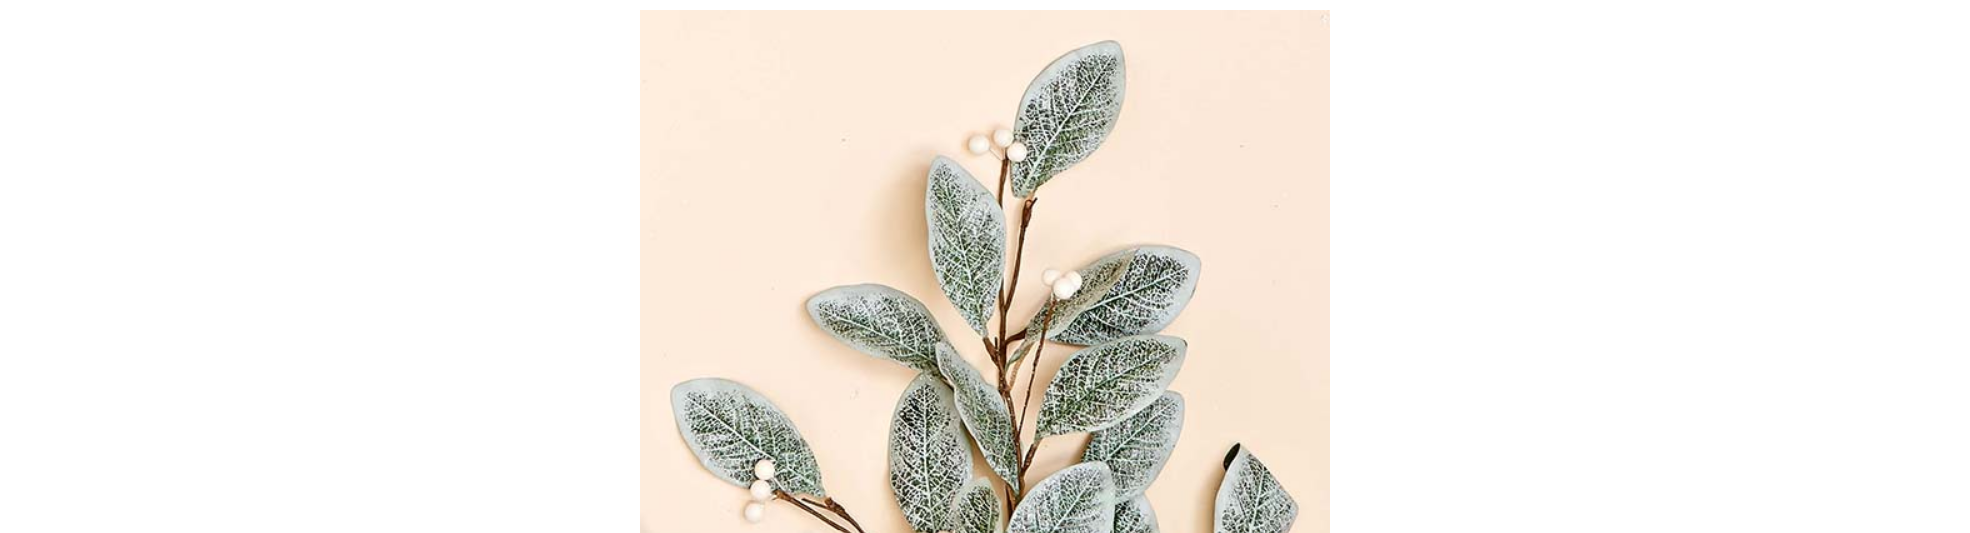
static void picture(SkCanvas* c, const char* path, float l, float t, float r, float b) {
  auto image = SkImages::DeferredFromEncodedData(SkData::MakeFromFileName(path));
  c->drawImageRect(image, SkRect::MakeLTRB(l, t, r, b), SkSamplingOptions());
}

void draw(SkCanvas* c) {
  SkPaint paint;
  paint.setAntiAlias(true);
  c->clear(0xffffffff);
  picture(c, "img_01.png", 640, 10, 1330, 533);
}
